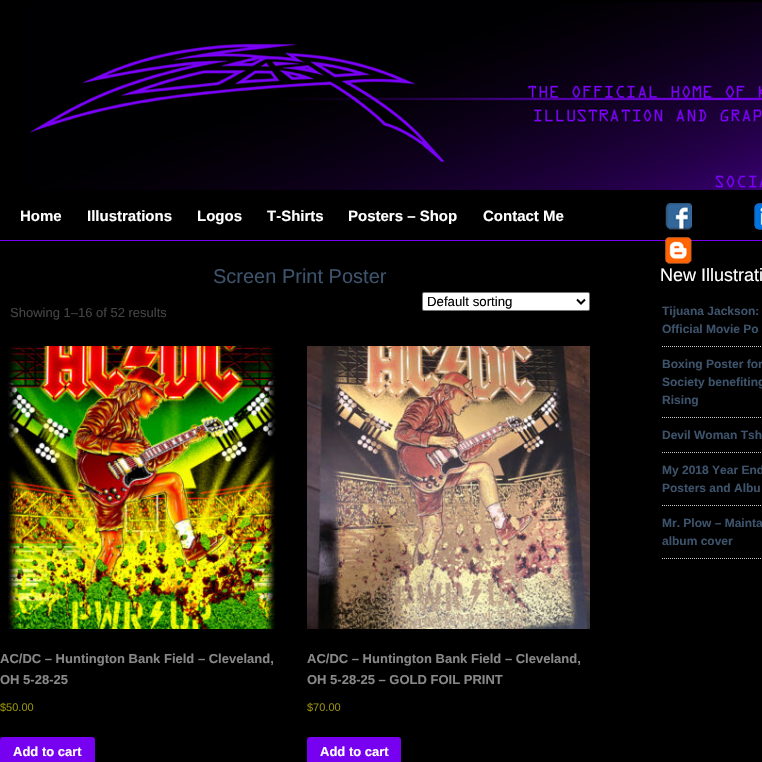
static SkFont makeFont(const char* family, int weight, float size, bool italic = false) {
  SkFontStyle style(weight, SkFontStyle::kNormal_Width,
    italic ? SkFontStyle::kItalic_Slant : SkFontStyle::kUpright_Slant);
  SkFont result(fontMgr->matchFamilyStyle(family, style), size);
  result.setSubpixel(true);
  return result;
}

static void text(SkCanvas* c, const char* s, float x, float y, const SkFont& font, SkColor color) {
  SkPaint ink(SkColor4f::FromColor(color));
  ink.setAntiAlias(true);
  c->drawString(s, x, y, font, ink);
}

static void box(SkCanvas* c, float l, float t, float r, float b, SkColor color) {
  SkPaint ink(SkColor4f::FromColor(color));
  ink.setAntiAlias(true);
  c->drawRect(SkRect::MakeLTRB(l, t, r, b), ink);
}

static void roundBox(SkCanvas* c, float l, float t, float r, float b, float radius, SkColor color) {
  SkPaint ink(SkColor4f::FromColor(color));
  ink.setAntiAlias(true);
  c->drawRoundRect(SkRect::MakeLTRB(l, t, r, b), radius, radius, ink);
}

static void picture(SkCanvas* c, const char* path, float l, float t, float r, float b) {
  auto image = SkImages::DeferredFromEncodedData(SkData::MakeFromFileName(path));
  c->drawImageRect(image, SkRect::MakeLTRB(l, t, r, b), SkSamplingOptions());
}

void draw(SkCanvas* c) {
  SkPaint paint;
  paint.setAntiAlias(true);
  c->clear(0xff000000);
  box(c, 0, 240, 762, 241, 0xff7700f0);
  picture(c, "img_01.png", 25, 2, 762, 190);
  SkFont face1 = makeFont("Liberation Sans", 700, 15);
  text(c, "Home", 20, 221, face1, 0xffffffff);
  text(c, "Illustrations", 87, 221, face1, 0xffffffff);
  text(c, "Logos", 197, 221, face1, 0xffffffff);
  text(c, "T-Shirts", 267, 221, face1, 0xffffffff);
  text(c, "Posters – Shop", 348, 221, face1, 0xffffffff);
  text(c, "Contact Me", 483, 221, face1, 0xffffffff);
  picture(c, "img_02.png", 665, 203, 692, 230);
  picture(c, "img_03.png", 754, 203, 762, 230);
  picture(c, "img_04.png", 665, 237, 692, 264);
  SkFont face2 = makeFont("Liberation Sans", 400, 20);
  text(c, "Screen Print Poster", 213, 283, face2, 0xff3d536c);
  paint.setColor(0xffffffff);
  c->drawRoundRect(SkRect::MakeLTRB(422.5f, 292.5f, 589.5f, 310.5f), 1.5f, 1.5f, paint);
  paint.setStyle(SkPaint::kStroke_Style);
  paint.setStrokeWidth(1);
  paint.setColor(0xff767676);
  c->drawRoundRect(SkRect::MakeLTRB(422.5f, 292.5f, 589.5f, 310.5f), 1.5f, 1.5f, paint);
  paint.setStrokeWidth(2);
  paint.setColor(0xff000000);
  c->drawPath(SkPathBuilder().moveTo(577, 299.5f).lineTo(581, 303.5f).lineTo(585, 299.5f).detach(), paint);
  SkFont face3 = makeFont("Liberation Sans", 400, 13.25f);
  text(c, "Default sorting", 427, 306, face3, 0xff000000);
  SkFont face4 = makeFont("Liberation Sans", 400, 13);
  text(c, "Showing 1–16 of 52 results", 10, 317, face4, 0xff444444);
  picture(c, "img_05.png", 7, 346, 277, 629);
  SkFont face5 = makeFont("Liberation Sans", 700, 13);
  text(c, "AC/DC – Huntington Bank Field – Cleveland,", 0, 663, face5, 0xff888888);
  text(c, "OH 5-28-25", 0, 684, face5, 0xff888888);
  SkFont face6 = makeFont("Liberation Sans", 400, 11);
  text(c, "$50.00", 0, 711, face6, 0xff958e09);
  roundBox(c, 0, 737, 95, 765, 3, 0xff7700f0);
  text(c, "Add to cart", 13, 756, face5, 0xffffffff);
  picture(c, "img_06.png", 307, 346, 590, 629);
  text(c, "AC/DC – Huntington Bank Field – Cleveland,", 307, 663, face5, 0xff888888);
  text(c, "OH 5-28-25 – GOLD FOIL PRINT", 307, 684, face5, 0xff888888);
  text(c, "$70.00", 307, 711, face6, 0xff958e09);
  roundBox(c, 307, 737, 401, 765, 3, 0xff7700f0);
  text(c, "Add to cart", 320, 756, face5, 0xffffffff);
  SkFont face7 = makeFont("Liberation Sans", 400, 18);
  text(c, "New Illustrati", 660, 281, face7, 0xffffffff);
  paint.setStrokeWidth(1);
  paint.setColor(0xffcccccc);
  paint.setPathEffect(SkDashPathEffect::Make({{1, 1}}, 0));
  c->drawPath(SkPathBuilder().moveTo(662, 346.5f).lineTo(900, 346.5f).detach(), paint);
  paint.setPathEffect(nullptr);
  SkFont face8 = makeFont("Liberation Sans", 700, 12);
  text(c, "Tijuana Jackson:", 662, 315, face8, 0xff3d536c);
  text(c, "Official Movie Po", 662, 333, face8, 0xff3d536c);
  paint.setPathEffect(SkDashPathEffect::Make({{1, 1}}, 0));
  c->drawPath(SkPathBuilder().moveTo(662, 417.5f).lineTo(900, 417.5f).detach(), paint);
  paint.setPathEffect(nullptr);
  text(c, "Boxing Poster for", 662, 368, face8, 0xff3d536c);
  text(c, "Society benefiting", 662, 386, face8, 0xff3d536c);
  text(c, "Rising", 662, 404, face8, 0xff3d536c);
  paint.setPathEffect(SkDashPathEffect::Make({{1, 1}}, 0));
  c->drawPath(SkPathBuilder().moveTo(662, 452.5f).lineTo(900, 452.5f).detach(), paint);
  paint.setPathEffect(nullptr);
  text(c, "Devil Woman Tsh", 662, 439, face8, 0xff3d536c);
  paint.setPathEffect(SkDashPathEffect::Make({{1, 1}}, 0));
  c->drawPath(SkPathBuilder().moveTo(662, 505.5f).lineTo(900, 505.5f).detach(), paint);
  paint.setPathEffect(nullptr);
  text(c, "My 2018 Year End", 662, 474, face8, 0xff3d536c);
  text(c, "Posters and Albu", 662, 492, face8, 0xff3d536c);
  paint.setPathEffect(SkDashPathEffect::Make({{1, 1}}, 0));
  c->drawPath(SkPathBuilder().moveTo(662, 558.5f).lineTo(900, 558.5f).detach(), paint);
  paint.setPathEffect(nullptr);
  text(c, "Mr. Plow – Mainta", 662, 527, face8, 0xff3d536c);
  text(c, "album cover", 662, 545, face8, 0xff3d536c);
}
